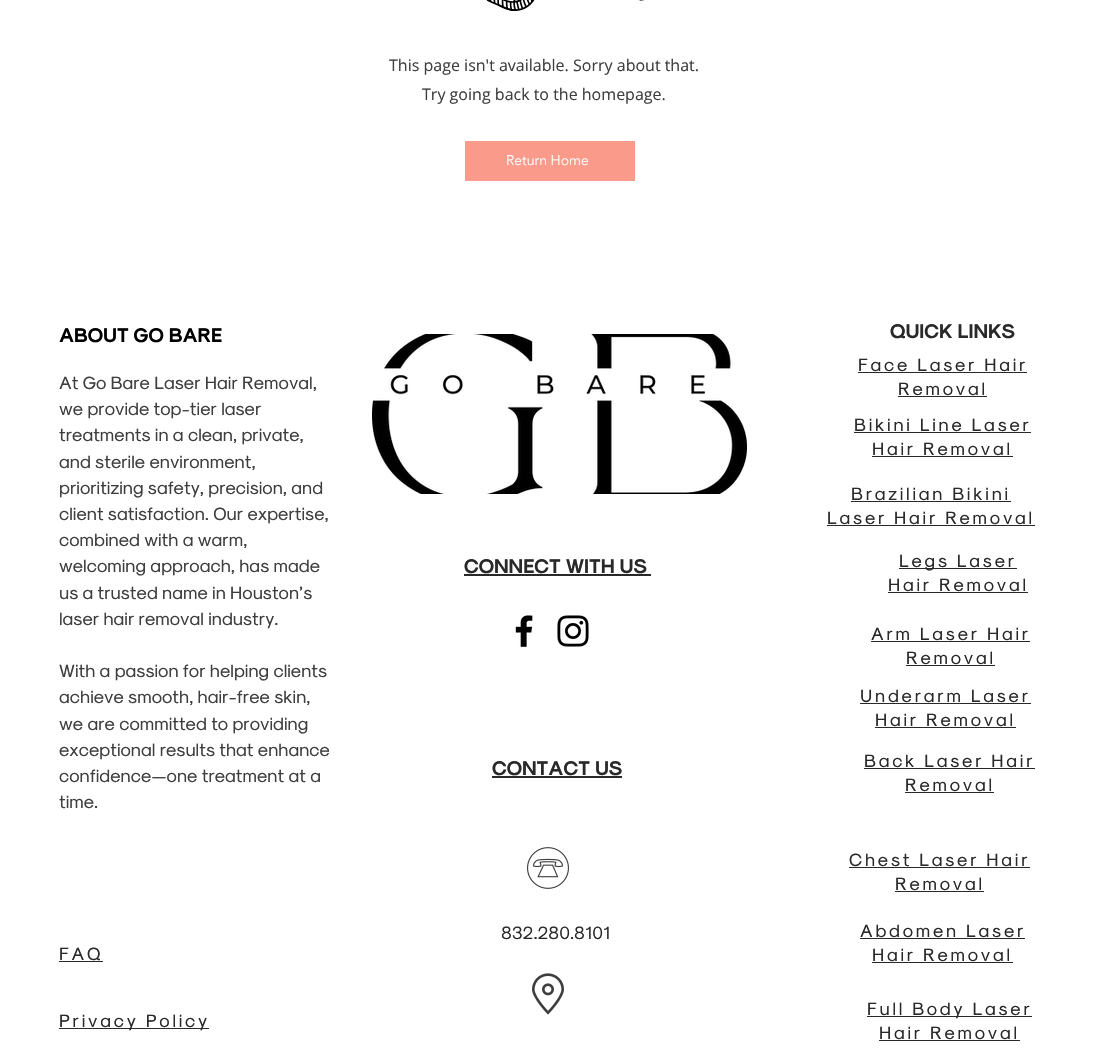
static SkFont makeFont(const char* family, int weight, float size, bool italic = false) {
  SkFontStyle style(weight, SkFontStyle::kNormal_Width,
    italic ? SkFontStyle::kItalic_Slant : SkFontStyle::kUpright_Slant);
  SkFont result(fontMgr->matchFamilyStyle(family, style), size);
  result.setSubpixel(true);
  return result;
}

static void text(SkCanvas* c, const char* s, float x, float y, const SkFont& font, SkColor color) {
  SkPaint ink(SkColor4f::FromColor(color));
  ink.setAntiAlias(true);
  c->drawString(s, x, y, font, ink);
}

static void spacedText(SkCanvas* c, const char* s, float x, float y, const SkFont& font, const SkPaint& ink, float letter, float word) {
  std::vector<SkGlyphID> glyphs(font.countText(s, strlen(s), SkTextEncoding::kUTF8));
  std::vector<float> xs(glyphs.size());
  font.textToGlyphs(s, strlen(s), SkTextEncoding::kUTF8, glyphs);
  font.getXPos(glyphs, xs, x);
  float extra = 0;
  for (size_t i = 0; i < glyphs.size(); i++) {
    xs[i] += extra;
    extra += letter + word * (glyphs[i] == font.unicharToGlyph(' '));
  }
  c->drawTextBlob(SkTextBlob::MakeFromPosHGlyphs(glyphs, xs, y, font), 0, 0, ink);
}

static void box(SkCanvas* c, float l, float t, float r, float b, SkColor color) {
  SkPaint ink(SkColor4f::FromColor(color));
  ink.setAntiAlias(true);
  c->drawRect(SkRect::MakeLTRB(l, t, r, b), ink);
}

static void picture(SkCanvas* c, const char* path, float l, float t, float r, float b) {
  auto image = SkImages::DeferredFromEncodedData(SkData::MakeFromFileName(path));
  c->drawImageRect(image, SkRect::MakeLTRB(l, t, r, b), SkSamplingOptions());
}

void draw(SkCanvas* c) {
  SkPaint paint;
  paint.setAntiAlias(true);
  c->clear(0xffffffff);
  picture(c, "img_01.png", 486, 0, 644, 11);
  SkFont face1 = makeFont("Open Sans", 400, 16);
  text(c, "This page isn't available. Sorry about that.", 389, 71, face1, 0xff3e3e3e);
  text(c, "Try going back to the homepage.", 422, 100, face1, 0xff3e3e3e);
  box(c, 465, 141, 635, 181, 0xfff99a8b);
  SkFont face2 = makeFont("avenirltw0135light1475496", 300, 14);
  text(c, "Return Home", 506, 165, face2, 0xffffffff);
  SkFont face3 = makeFont("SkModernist", 700, 20);
  text(c, "ABOUT GO BARE", 59, 342, face3, 0xff000000);
  picture(c, "img_02.png", 372, 334, 747, 494);
  text(c, "QUICK LINKS", 890, 338, face3, 0xff292929);
  SkFont face4 = makeFont("SkModernist", 400, 18);
  text(c, "At Go Bare Laser Hair Removal,", 59, 389, face4, 0xff3e3e3e);
  text(c, "we provide top-tier laser", 59, 415, face4, 0xff3e3e3e);
  text(c, "treatments in a clean, private,", 59, 441, face4, 0xff3e3e3e);
  text(c, "and sterile environment,", 59, 468, face4, 0xff3e3e3e);
  text(c, "prioritizing safety, precision, and", 59, 494, face4, 0xff3e3e3e);
  text(c, "client satisfaction. Our expertise,", 59, 520, face4, 0xff3e3e3e);
  text(c, "combined with a warm,", 59, 546, face4, 0xff3e3e3e);
  text(c, "welcoming approach, has made", 59, 572, face4, 0xff3e3e3e);
  text(c, "us a trusted name in Houston’s", 59, 599, face4, 0xff3e3e3e);
  text(c, "laser hair removal industry.", 59, 625, face4, 0xff3e3e3e);
  text(c, "With a passion for helping clients", 59, 677, face4, 0xff3e3e3e);
  text(c, "achieve smooth, hair-free skin,", 59, 703, face4, 0xff3e3e3e);
  text(c, "we are committed to providing", 59, 730, face4, 0xff3e3e3e);
  text(c, "exceptional results that enhance", 59, 756, face4, 0xff3e3e3e);
  text(c, "confidence—one treatment at a", 59, 782, face4, 0xff3e3e3e);
  text(c, "time.", 59, 808, face4, 0xff3e3e3e);
  paint.setColor(0xff292929);
  spacedText(c, "Face Laser Hair", 858, 371, face4, paint, 2.75f, 0);
  box(c, 858, 372, 1027, 373, 0xff292929);
  spacedText(c, "Removal", 898, 395, face4, paint, 2.75f, 0);
  box(c, 898, 396, 987, 397, 0xff292929);
  spacedText(c, "Bikini Line Laser", 854, 431, face4, paint, 2.75f, 0);
  box(c, 854, 432, 1031, 433, 0xff292929);
  spacedText(c, "Hair Removal", 872, 455, face4, paint, 2.75f, 0);
  box(c, 872, 456, 1013, 457, 0xff292929);
  spacedText(c, "Brazilian Bikini", 851, 500, face4, paint, 2.75f, 0);
  box(c, 851, 501, 1011, 502, 0xff292929);
  spacedText(c, "Laser Hair Removal", 827, 524, face4, paint, 2.75f, 0);
  box(c, 827, 525, 1035, 526, 0xff292929);
  text(c, "CONNECT WITH US", 464, 573, face3, 0xff292929);
  box(c, 464, 574, 651, 576, 0xff292929);
  box(c, 899, 568, 1017, 569, 0xff292929);
  spacedText(c, "Legs Laser", 899, 567, face4, paint, 2.75f, 0);
  spacedText(c, "Hair Removal", 888, 591, face4, paint, 2.75f, 0);
  box(c, 888, 592, 1028, 593, 0xff292929);
  picture(c, "img_03.png", 515, 615, 533, 647);
  picture(c, "img_04.png", 557, 615, 589, 647);
  spacedText(c, "Arm Laser Hair", 871, 640, face4, paint, 2.75f, 0);
  box(c, 871, 641, 1030, 642, 0xff292929);
  spacedText(c, "Removal", 906, 664, face4, paint, 2.75f, 0);
  box(c, 906, 665, 995, 666, 0xff292929);
  spacedText(c, "Underarm Laser", 860, 702, face4, paint, 2.75f, 0);
  box(c, 860, 703, 1031, 704, 0xff292929);
  spacedText(c, "Hair Removal", 875, 726, face4, paint, 2.75f, 0);
  box(c, 875, 727, 1016, 728, 0xff292929);
  text(c, "CONTACT US", 492, 775, face3, 0xff292929);
  box(c, 492, 776, 622, 778, 0xff292929);
  spacedText(c, "Back Laser Hair", 864, 767, face4, paint, 2.75f, 0);
  box(c, 864, 768, 1035, 769, 0xff292929);
  spacedText(c, "Removal", 905, 791, face4, paint, 2.75f, 0);
  box(c, 905, 792, 994, 793, 0xff292929);
  picture(c, "img_05.png", 527, 847, 569, 889);
  spacedText(c, "Chest Laser Hair", 849, 866, face4, paint, 2.75f, 0);
  box(c, 849, 867, 1030, 868, 0xff292929);
  spacedText(c, "Removal", 895, 890, face4, paint, 2.75f, 0);
  box(c, 895, 891, 984, 892, 0xff292929);
  text(c, "832.280.8101", 501, 939, face4, 0xff292929);
  spacedText(c, "Abdomen Laser", 860, 937, face4, paint, 2.75f, 0);
  box(c, 860, 938, 1025, 939, 0xff292929);
  spacedText(c, "Hair Removal", 872, 961, face4, paint, 2.75f, 0);
  box(c, 872, 962, 1013, 963, 0xff292929);
  spacedText(c, "FAQ", 59, 960, face4, paint, 2.75f, 0);
  box(c, 59, 961, 103, 962, 0xff292929);
  picture(c, "img_06.png", 532, 973, 564, 1015);
  box(c, 59, 1028, 209, 1029, 0xff292929);
  spacedText(c, "Privacy Policy", 59, 1027, face4, paint, 2.75f, 0);
  box(c, 867, 1016, 1032, 1017, 0xff292929);
  spacedText(c, "Full Body Laser", 867, 1015, face4, paint, 2.75f, 0);
  spacedText(c, "Hair Removal", 879, 1039, face4, paint, 2.75f, 0);
  box(c, 879, 1040, 1020, 1041, 0xff292929);
}
